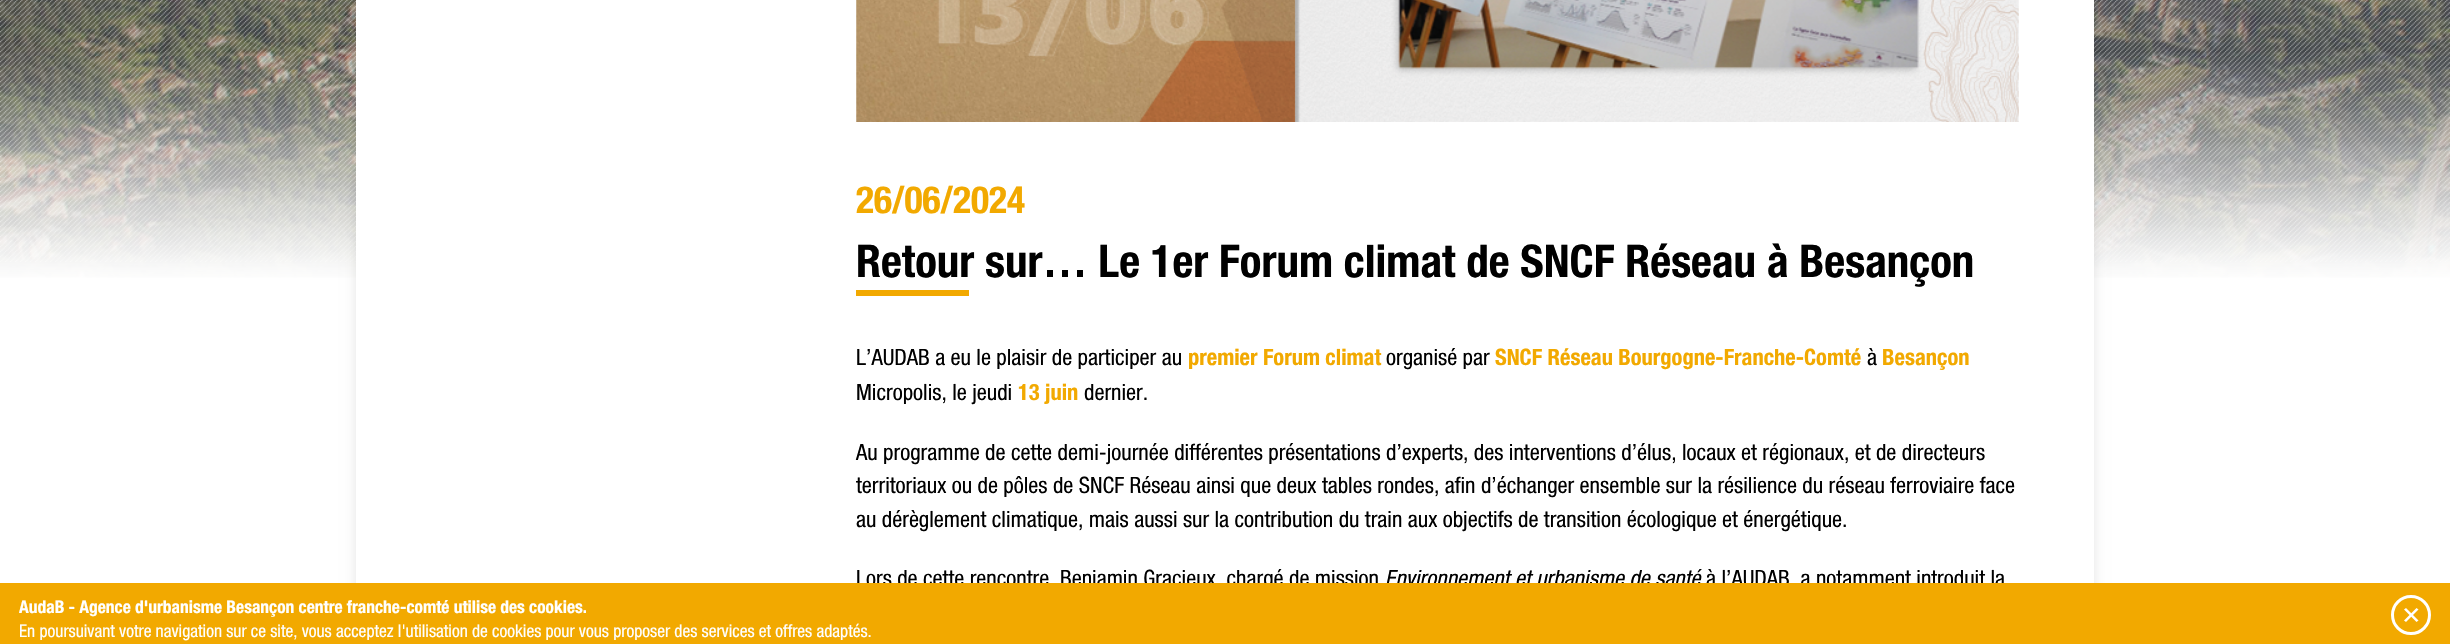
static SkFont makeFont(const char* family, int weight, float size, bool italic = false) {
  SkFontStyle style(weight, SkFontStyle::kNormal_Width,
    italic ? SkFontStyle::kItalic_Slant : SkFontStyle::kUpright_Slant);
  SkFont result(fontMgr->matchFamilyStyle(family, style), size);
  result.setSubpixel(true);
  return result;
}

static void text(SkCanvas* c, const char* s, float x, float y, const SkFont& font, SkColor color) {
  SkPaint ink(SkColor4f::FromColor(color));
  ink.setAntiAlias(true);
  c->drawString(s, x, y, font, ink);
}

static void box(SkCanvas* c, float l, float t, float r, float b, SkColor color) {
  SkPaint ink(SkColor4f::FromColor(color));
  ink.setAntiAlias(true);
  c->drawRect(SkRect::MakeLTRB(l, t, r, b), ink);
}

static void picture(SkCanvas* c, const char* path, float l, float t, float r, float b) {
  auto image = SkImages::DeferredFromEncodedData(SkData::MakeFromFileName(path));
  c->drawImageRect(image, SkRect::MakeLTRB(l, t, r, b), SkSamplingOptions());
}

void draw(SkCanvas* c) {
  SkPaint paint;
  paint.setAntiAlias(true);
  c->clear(0xffffffff);
  picture(c, "img_01.png", 0, 0, 2450, 278);
  {
    const SkColor colors[] = {0xffffffff, 0xfaffffff, 0xf5ffffff, 0xd1ffffff, 0xccffffff, 0xb8ffffff, 0x91ffffff, 0x8affffff, 0x6effffff, 0x5effffff, 0x59ffffff, 0x4fffffff, 0x4fffffff, 0x42ffffff, 0x26ffffff, 0x0affffff, 0x00ffffff};
    const float stops[] = {0, 0.01f, 0.05f, 0.21f, 0.22f, 0.31f, 0.42f, 0.44f, 0.55f, 0.58f, 0.61f, 0.63f, 0.64f, 0.68f, 0.78f, 0.91f, 1};
    const SkPoint ends[] = {{1225, 279}, {1225, 41}};
    paint.setShader(SkGradientShader::MakeLinear(ends, colors, stops, 17, SkTileMode::kClamp));
    paint.setAlpha(255);
  }
  c->drawRect(SkRect::MakeLTRB(0, 53, 2450, 278), paint);
  picture(c, "img_02.png", 0, 0, 2450, 262);
  paint.setShader(nullptr);
  paint.setColor(0x1a000000);
  paint.setMaskFilter(SkMaskFilter::MakeBlur(kNormal_SkBlurStyle, 6));
  c->drawRect(SkRect::MakeLTRB(356, -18, 2094, 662), paint);
  paint.setMaskFilter(nullptr);
  box(c, 356, 0, 2094, 583, 0xffffffff);
  picture(c, "img_03.png", 856, 0, 2019, 122);
  SkFont face1 = makeFont("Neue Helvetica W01", 700, 37.5f);
  text(c, "26/06/2024", 856, 213, face1, 0xfff2a900);
  SkFont face2 = makeFont("Neue Helvetica W01", 700, 45);
  text(c, "Retour sur… Le 1er Forum climat de SNCF Réseau à Besançon", 856, 277, face2, 0xff000000);
  box(c, 856, 290, 969, 296, 0xfff2a900);
  SkFont face3 = makeFont("Neue Helvetica W01", 400, 22.5f);
  text(c, "L’AUDAB a eu le plaisir de participer au", 856, 365, face3, 0xff000000);
  SkFont face4 = makeFont("Neue Helvetica W01", 700, 22.5f);
  text(c, "premier Forum climat", 1188, 365, face4, 0xfff2a900);
  text(c, "organisé par", 1386, 365, face3, 0xff000000);
  text(c, "SNCF Réseau Bourgogne-Franche-Comté", 1495, 365, face4, 0xfff2a900);
  text(c, "à", 1867, 365, face3, 0xff000000);
  text(c, "Besançon", 1882, 365, face4, 0xfff2a900);
  text(c, "Micropolis, le jeudi", 856, 400, face3, 0xff000000);
  text(c, "13 juin", 1018, 400, face4, 0xfff2a900);
  text(c, "dernier.", 1084, 400, face3, 0xff000000);
  text(c, "Au programme de cette demi-journée différentes présentations d’experts, des interventions d’élus, locaux et régionaux, et de directeurs", 856, 460, face3, 0xff000000);
  text(c, "territoriaux ou de pôles de SNCF Réseau ainsi que deux tables rondes, afin d’échanger ensemble sur la résilience du réseau ferroviaire face", 856, 493, face3, 0xff000000);
  text(c, "au dérèglement climatique, mais aussi sur la contribution du train aux objectifs de transition écologique et énergétique.", 856, 527, face3, 0xff000000);
  text(c, "Lors de cette rencontre, Benjamin Gracieux, chargé de mission", 856, 586, face3, 0xff000000);
  SkFont face5 = makeFont("Neue Helvetica W01", 400, 22.5f, true);
  text(c, "Environnement et urbanisme de santé", 1385, 586, face5, 0xff000000);
  text(c, "à l’AUDAB, a notamment introduit la", 1706, 586, face3, 0xff000000);
  box(c, 0, 583, 2450, 644, 0xfff2a900);
  SkFont face6 = makeFont("Neue Helvetica W01", 700, 17.5f);
  text(c, "AudaB - Agence d'urbanisme Besançon centre franche-comté utilise des cookies.", 19, 613, face6, 0xffffffff);
  SkFont face7 = makeFont("Neue Helvetica W01", 400, 17.5f);
  text(c, "En poursuivant votre navigation sur ce site, vous acceptez l'utilisation de cookies pour vous proposer des services et offres adaptés.", 19, 637, face7, 0xffffffff);
  paint.setStyle(SkPaint::kStroke_Style);
  paint.setStrokeWidth(3);
  paint.setColor(0xffffffff);
  c->drawCircle(2411, 615, 18.5f, paint);
  paint.setStyle(SkPaint::kFill_Style);
  c->drawPath(SkPathBuilder().moveTo(2406, 608).lineTo(2418.5f, 620.5f).lineTo(2416.5f, 622).lineTo(2404, 609.5f).close().detach(), paint);
  c->drawPath(SkPathBuilder().moveTo(2416.5f, 608).lineTo(2418.5f, 609.5f).lineTo(2406, 622).lineTo(2404, 620.5f).close().detach(), paint);
}
